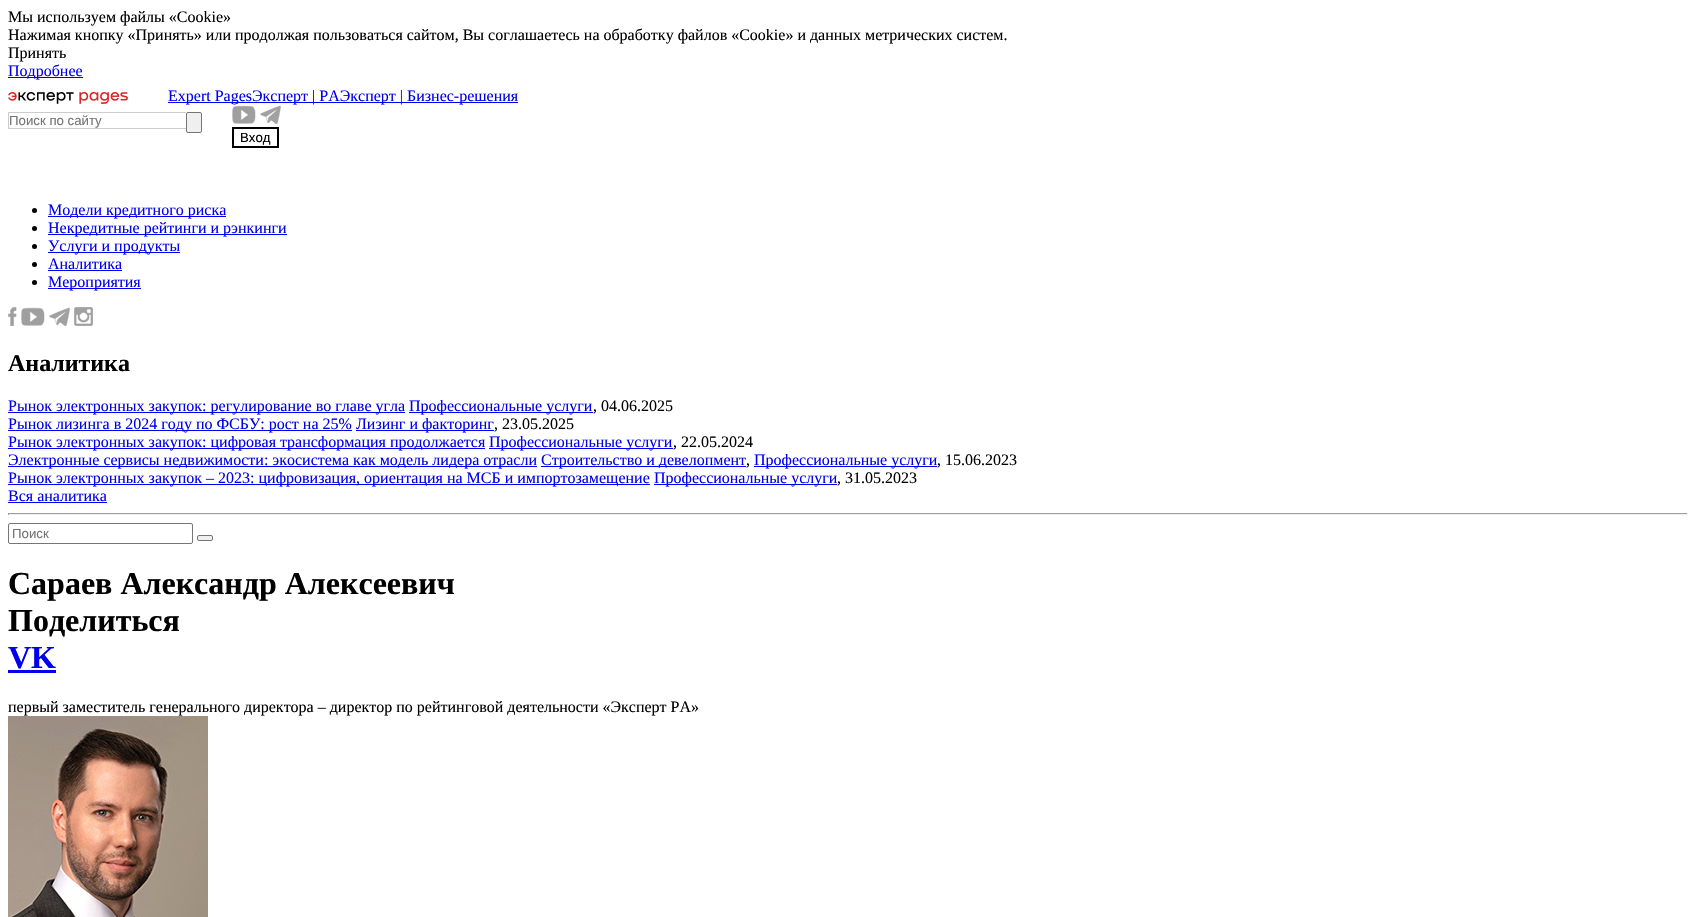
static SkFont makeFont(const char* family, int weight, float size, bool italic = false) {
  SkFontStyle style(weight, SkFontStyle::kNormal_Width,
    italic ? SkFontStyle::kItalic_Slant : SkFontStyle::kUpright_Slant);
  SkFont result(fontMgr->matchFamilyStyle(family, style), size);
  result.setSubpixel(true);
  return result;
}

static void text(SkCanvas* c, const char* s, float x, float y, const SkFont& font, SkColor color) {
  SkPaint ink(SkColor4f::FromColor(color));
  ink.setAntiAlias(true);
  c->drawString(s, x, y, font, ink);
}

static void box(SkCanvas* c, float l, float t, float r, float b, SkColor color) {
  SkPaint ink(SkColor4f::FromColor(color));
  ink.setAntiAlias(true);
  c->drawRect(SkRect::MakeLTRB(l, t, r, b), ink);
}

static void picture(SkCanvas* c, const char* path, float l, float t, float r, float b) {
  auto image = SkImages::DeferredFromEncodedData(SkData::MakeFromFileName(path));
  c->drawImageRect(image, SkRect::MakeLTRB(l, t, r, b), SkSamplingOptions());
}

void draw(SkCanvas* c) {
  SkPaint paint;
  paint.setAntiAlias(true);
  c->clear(0xffffffff);
  SkFont face1 = makeFont("Liberation Serif", 400, 16);
  text(c, "Мы используем файлы «Cookie»", 8, 22, face1, 0xff000000);
  text(c, "Нажимая кнопку «Принять» или продолжая пользоваться сайтом, Вы соглашаетесь на обработку файлов «Cookie» и данных метрических систем.", 8, 40, face1, 0xff000000);
  text(c, "Принять", 8, 58, face1, 0xff000000);
  box(c, 8, 77, 83, 78, 0xff0000ee);
  text(c, "Подробнее", 8, 76, face1, 0xff0000ee);
  picture(c, "img_01.png", 8, 92, 128, 104);
  box(c, 168, 102, 518, 103, 0xff0000ee);
  text(c, "Expert PagesЭксперт | РАЭксперт | Бизнес-решения", 168, 101, face1, 0xff0000ee);
  box(c, 8, 112, 186, 113, 0xffcccccc);
  box(c, 8, 128, 186, 129, 0xffcccccc);
  box(c, 8, 112, 9, 129, 0xffcccccc);
  SkFont face2 = makeFont("Liberation Sans", 400, 13.25f);
  text(c, "Поиск по сайту", 9, 125, face2, 0xff757575);
  paint.setColor(0xffefefef);
  c->drawRoundRect(SkRect::MakeLTRB(186.5f, 112.5f, 201.5f, 132.5f), 1.5f, 1.5f, paint);
  paint.setStyle(SkPaint::kStroke_Style);
  paint.setStrokeWidth(1);
  paint.setColor(0xff767676);
  c->drawRoundRect(SkRect::MakeLTRB(186.5f, 112.5f, 201.5f, 132.5f), 1.5f, 1.5f, paint);
  picture(c, "img_02.png", 232, 105, 256, 124);
  picture(c, "img_03.png", 260, 105, 281, 124);
  paint.setStrokeWidth(2);
  paint.setColor(0xff000000);
  c->drawRect(SkRect::MakeLTRB(233, 128, 278, 147), paint);
  text(c, "Вход", 240, 142, face2, 0xff000000);
  paint.setStyle(SkPaint::kFill_Style);
  c->drawCircle(34.5f, 210.5f, 2.5f, paint);
  box(c, 48, 216, 226, 217, 0xff0000ee);
  text(c, "Модели кредитного риска", 48, 215, face1, 0xff0000ee);
  c->drawCircle(34.5f, 228.5f, 2.5f, paint);
  box(c, 48, 234, 287, 235, 0xff0000ee);
  text(c, "Некредитные рейтинги и рэнкинги", 48, 233, face1, 0xff0000ee);
  c->drawCircle(34.5f, 246.5f, 2.5f, paint);
  box(c, 48, 252, 180, 253, 0xff0000ee);
  text(c, "Услуги и продукты", 48, 251, face1, 0xff0000ee);
  c->drawCircle(34.5f, 264.5f, 2.5f, paint);
  text(c, "Аналитика", 48, 269, face1, 0xff0000ee);
  box(c, 48, 270, 122, 271, 0xff0000ee);
  c->drawCircle(34.5f, 282.5f, 2.5f, paint);
  box(c, 48, 288, 141, 289, 0xff0000ee);
  text(c, "Мероприятия", 48, 287, face1, 0xff0000ee);
  picture(c, "img_04.png", 8, 307, 17, 326);
  picture(c, "img_02.png", 21, 307, 45, 326);
  picture(c, "img_03.png", 49, 307, 70, 326);
  picture(c, "img_05.png", 74, 307, 93, 326);
  SkFont face3 = makeFont("Liberation Serif", 700, 24);
  text(c, "Аналитика", 8, 371, face3, 0xff000000);
  box(c, 8, 412, 405, 413, 0xff0000ee);
  text(c, "Рынок электронных закупок: регулирование во главе угла", 8, 411, face1, 0xff0000ee);
  box(c, 409, 412, 593, 413, 0xff0000ee);
  text(c, "Профессиональные услуги", 409, 411, face1, 0xff0000ee);
  text(c, ", 04.06.2025", 593, 411, face1, 0xff000000);
  box(c, 8, 430, 352, 431, 0xff0000ee);
  text(c, "Рынок лизинга в 2024 году по ФСБУ: рост на 25%", 8, 429, face1, 0xff0000ee);
  box(c, 356, 430, 494, 431, 0xff0000ee);
  text(c, "Лизинг и факторинг", 356, 429, face1, 0xff0000ee);
  text(c, ", 23.05.2025", 494, 429, face1, 0xff000000);
  box(c, 8, 448, 485, 449, 0xff0000ee);
  text(c, "Рынок электронных закупок: цифровая трансформация продолжается", 8, 447, face1, 0xff0000ee);
  box(c, 489, 448, 673, 449, 0xff0000ee);
  text(c, "Профессиональные услуги", 489, 447, face1, 0xff0000ee);
  text(c, ", 22.05.2024", 673, 447, face1, 0xff000000);
  box(c, 8, 466, 537, 467, 0xff0000ee);
  text(c, "Электронные сервисы недвижимости: экосистема как модель лидера отрасли", 8, 465, face1, 0xff0000ee);
  box(c, 541, 466, 746, 467, 0xff0000ee);
  text(c, "Строительство и девелопмент", 541, 465, face1, 0xff0000ee);
  text(c, ",", 746, 465, face1, 0xff000000);
  box(c, 754, 466, 937, 467, 0xff0000ee);
  text(c, "Профессиональные услуги", 754, 465, face1, 0xff0000ee);
  text(c, ", 15.06.2023", 937, 465, face1, 0xff000000);
  box(c, 8, 484, 650, 485, 0xff0000ee);
  text(c, "Рынок электронных закупок – 2023: цифровизация, ориентация на МСБ и импортозамещение", 8, 483, face1, 0xff0000ee);
  box(c, 654, 484, 837, 485, 0xff0000ee);
  text(c, "Профессиональные услуги", 654, 483, face1, 0xff0000ee);
  text(c, ", 31.05.2023", 837, 483, face1, 0xff000000);
  text(c, "Вся аналитика", 8, 501, face1, 0xff0000ee);
  box(c, 8, 502, 107, 503, 0xff0000ee);
  box(c, 8, 513, 1688, 514, 0xff9f9f9f);
  box(c, 1687, 513, 1688, 515, 0xffeeeeee);
  box(c, 8, 514, 1688, 515, 0xffeeeeee);
  box(c, 8, 513, 9, 515, 0xff9f9f9f);
  paint.setStyle(SkPaint::kStroke_Style);
  paint.setStrokeWidth(1);
  paint.setColor(0xff767676);
  c->drawRoundRect(SkRect::MakeLTRB(8.5f, 523.5f, 192.5f, 543.5f), 1.5f, 1.5f, paint);
  text(c, "Поиск", 12, 538, face2, 0xff757575);
  paint.setStyle(SkPaint::kFill_Style);
  paint.setColor(0xffefefef);
  c->drawRoundRect(SkRect::MakeLTRB(197.5f, 535.5f, 212.5f, 540.5f), 1.5f, 1.5f, paint);
  paint.setStyle(SkPaint::kStroke_Style);
  paint.setColor(0xff767676);
  c->drawRoundRect(SkRect::MakeLTRB(197.5f, 535.5f, 212.5f, 540.5f), 1.5f, 1.5f, paint);
  SkFont face4 = makeFont("Liberation Serif", 700, 32);
  text(c, "Сараев Александр Алексеевич", 8, 594, face4, 0xff000000);
  text(c, "Поделиться", 8, 631, face4, 0xff000000);
  text(c, "VK", 8, 668, face4, 0xff0000ee);
  box(c, 8, 670, 56, 673, 0xff0000ee);
  text(c, "первый заместитель генерального директора – директор по рейтинговой деятельности «Эксперт РА»", 8, 712, face1, 0xff000000);
  picture(c, "img_06.png", 8, 716, 208, 917);
}
